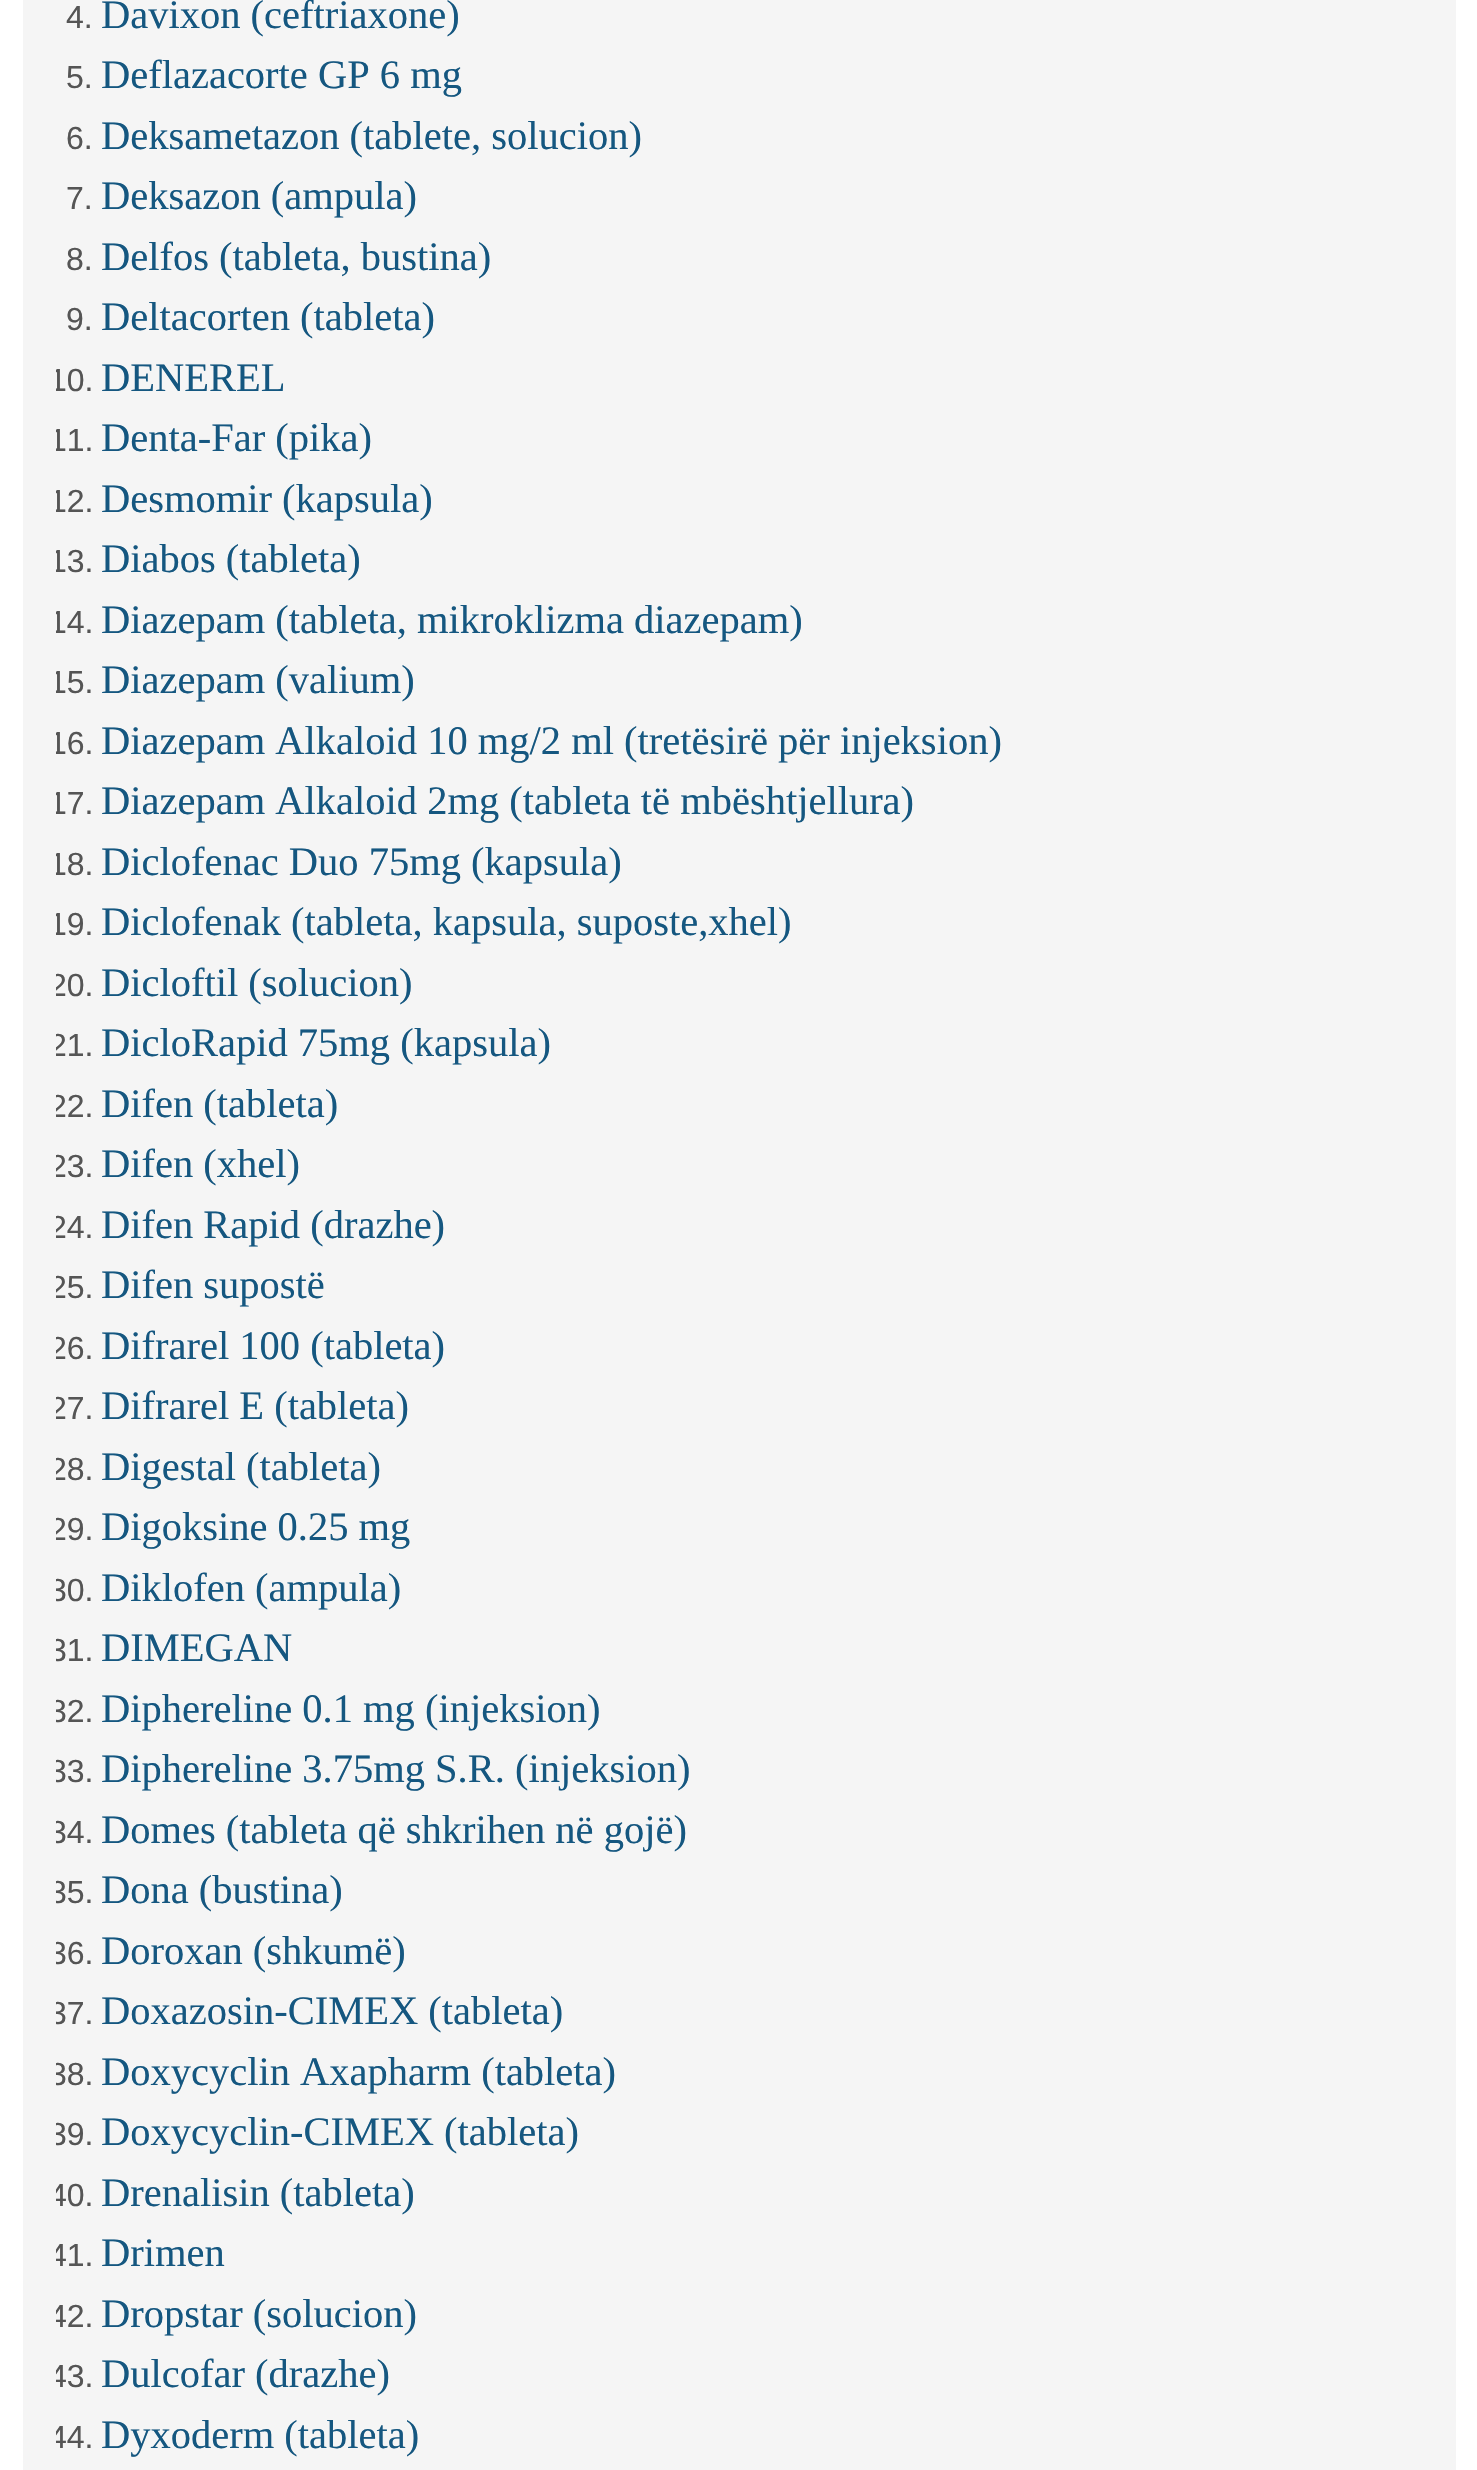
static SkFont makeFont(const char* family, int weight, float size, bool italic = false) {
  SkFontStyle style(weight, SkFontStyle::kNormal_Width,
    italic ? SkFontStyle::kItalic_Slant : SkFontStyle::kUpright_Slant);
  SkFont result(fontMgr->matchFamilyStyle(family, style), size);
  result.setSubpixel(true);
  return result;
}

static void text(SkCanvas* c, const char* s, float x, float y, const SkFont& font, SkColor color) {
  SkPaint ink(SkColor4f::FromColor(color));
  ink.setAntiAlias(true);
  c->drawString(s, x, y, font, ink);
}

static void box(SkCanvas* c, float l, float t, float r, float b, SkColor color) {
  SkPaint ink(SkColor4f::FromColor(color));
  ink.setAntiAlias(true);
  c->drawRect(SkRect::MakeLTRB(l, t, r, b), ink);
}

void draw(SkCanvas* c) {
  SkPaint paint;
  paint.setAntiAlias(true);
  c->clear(0xffffffff);
  box(c, 23, 0, 1456, 2470, 0xfff5f5f5);
  SkFont face1 = makeFont("Arimo", 400, 32);
  text(c, "4.", 66, 28, face1, 0xff555555);
  SkFont face2 = makeFont("Liberation Serif", 400, 40.5f);
  text(c, "Davixon (ceftriaxone)", 101, 28, face2, 0xff155780);
  text(c, "5.", 66, 88, face1, 0xff555555);
  text(c, "Deflazacorte GP 6 mg", 101, 88, face2, 0xff155780);
  text(c, "6.", 66, 149, face1, 0xff555555);
  text(c, "Deksametazon (tablete, solucion)", 101, 149, face2, 0xff155780);
  text(c, "7.", 66, 209, face1, 0xff555555);
  text(c, "Deksazon (ampula)", 101, 209, face2, 0xff155780);
  text(c, "8.", 66, 270, face1, 0xff555555);
  text(c, "Delfos (tableta, bustina)", 101, 270, face2, 0xff155780);
  text(c, "9.", 66, 330, face1, 0xff555555);
  text(c, "Deltacorten (tableta)", 101, 330, face2, 0xff155780);
  c->save();
  c->clipRect(SkRect::MakeLTRB(56, 0, 1422, 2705));
  text(c, "10.", 49, 391, face1, 0xff555555);
  c->restore();
  text(c, "DENEREL", 101, 391, face2, 0xff155780);
  c->save();
  c->clipRect(SkRect::MakeLTRB(56, 0, 1422, 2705));
  text(c, "11.", 49, 451, face1, 0xff555555);
  c->restore();
  text(c, "Denta-Far (pika)", 101, 451, face2, 0xff155780);
  c->save();
  c->clipRect(SkRect::MakeLTRB(56, 0, 1422, 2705));
  text(c, "12.", 49, 512, face1, 0xff555555);
  c->restore();
  text(c, "Desmomir (kapsula)", 101, 512, face2, 0xff155780);
  c->save();
  c->clipRect(SkRect::MakeLTRB(56, 0, 1422, 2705));
  text(c, "13.", 49, 572, face1, 0xff555555);
  c->restore();
  text(c, "Diabos (tableta)", 101, 572, face2, 0xff155780);
  c->save();
  c->clipRect(SkRect::MakeLTRB(56, 0, 1422, 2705));
  text(c, "14.", 49, 633, face1, 0xff555555);
  c->restore();
  text(c, "Diazepam (tableta, mikroklizma diazepam)", 101, 633, face2, 0xff155780);
  c->save();
  c->clipRect(SkRect::MakeLTRB(56, 0, 1422, 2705));
  text(c, "15.", 49, 693, face1, 0xff555555);
  c->restore();
  text(c, "Diazepam (valium)", 101, 693, face2, 0xff155780);
  c->save();
  c->clipRect(SkRect::MakeLTRB(56, 0, 1422, 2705));
  text(c, "16.", 49, 754, face1, 0xff555555);
  c->restore();
  text(c, "Diazepam Alkaloid 10 mg/2 ml (tretësirë për injeksion)", 101, 754, face2, 0xff155780);
  c->save();
  c->clipRect(SkRect::MakeLTRB(56, 0, 1422, 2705));
  text(c, "17.", 49, 814, face1, 0xff555555);
  c->restore();
  text(c, "Diazepam Alkaloid 2mg (tableta të mbështjellura)", 101, 814, face2, 0xff155780);
  c->save();
  c->clipRect(SkRect::MakeLTRB(56, 0, 1422, 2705));
  text(c, "18.", 49, 875, face1, 0xff555555);
  c->restore();
  text(c, "Diclofenac Duo 75mg (kapsula)", 101, 875, face2, 0xff155780);
  c->save();
  c->clipRect(SkRect::MakeLTRB(56, 0, 1422, 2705));
  text(c, "19.", 49, 935, face1, 0xff555555);
  c->restore();
  text(c, "Diclofenak (tableta, kapsula, suposte,xhel)", 101, 935, face2, 0xff155780);
  c->save();
  c->clipRect(SkRect::MakeLTRB(56, 0, 1422, 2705));
  text(c, "20.", 49, 996, face1, 0xff555555);
  c->restore();
  text(c, "Dicloftil (solucion)", 101, 996, face2, 0xff155780);
  c->save();
  c->clipRect(SkRect::MakeLTRB(56, 0, 1422, 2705));
  text(c, "21.", 49, 1056, face1, 0xff555555);
  c->restore();
  text(c, "DicloRapid 75mg (kapsula)", 101, 1056, face2, 0xff155780);
  c->save();
  c->clipRect(SkRect::MakeLTRB(56, 0, 1422, 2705));
  text(c, "22.", 49, 1117, face1, 0xff555555);
  c->restore();
  text(c, "Difen (tableta)", 101, 1117, face2, 0xff155780);
  c->save();
  c->clipRect(SkRect::MakeLTRB(56, 0, 1422, 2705));
  text(c, "23.", 49, 1177, face1, 0xff555555);
  c->restore();
  text(c, "Difen (xhel)", 101, 1177, face2, 0xff155780);
  c->save();
  c->clipRect(SkRect::MakeLTRB(56, 0, 1422, 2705));
  text(c, "24.", 49, 1238, face1, 0xff555555);
  c->restore();
  text(c, "Difen Rapid (drazhe)", 101, 1238, face2, 0xff155780);
  c->save();
  c->clipRect(SkRect::MakeLTRB(56, 0, 1422, 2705));
  text(c, "25.", 49, 1298, face1, 0xff555555);
  c->restore();
  text(c, "Difen supostë", 101, 1298, face2, 0xff155780);
  c->save();
  c->clipRect(SkRect::MakeLTRB(56, 0, 1422, 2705));
  text(c, "26.", 49, 1359, face1, 0xff555555);
  c->restore();
  text(c, "Difrarel 100 (tableta)", 101, 1359, face2, 0xff155780);
  c->save();
  c->clipRect(SkRect::MakeLTRB(56, 0, 1422, 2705));
  text(c, "27.", 49, 1419, face1, 0xff555555);
  c->restore();
  text(c, "Difrarel E (tableta)", 101, 1419, face2, 0xff155780);
  c->save();
  c->clipRect(SkRect::MakeLTRB(56, 0, 1422, 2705));
  text(c, "28.", 49, 1480, face1, 0xff555555);
  c->restore();
  text(c, "Digestal (tableta)", 101, 1480, face2, 0xff155780);
  c->save();
  c->clipRect(SkRect::MakeLTRB(56, 0, 1422, 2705));
  text(c, "29.", 49, 1540, face1, 0xff555555);
  c->restore();
  text(c, "Digoksine 0.25 mg", 101, 1540, face2, 0xff155780);
  c->save();
  c->clipRect(SkRect::MakeLTRB(56, 0, 1422, 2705));
  text(c, "30.", 49, 1601, face1, 0xff555555);
  c->restore();
  text(c, "Diklofen (ampula)", 101, 1601, face2, 0xff155780);
  c->save();
  c->clipRect(SkRect::MakeLTRB(56, 0, 1422, 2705));
  text(c, "31.", 49, 1661, face1, 0xff555555);
  c->restore();
  text(c, "DIMEGAN", 101, 1661, face2, 0xff155780);
  c->save();
  c->clipRect(SkRect::MakeLTRB(56, 0, 1422, 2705));
  text(c, "32.", 49, 1722, face1, 0xff555555);
  c->restore();
  text(c, "Diphereline 0.1 mg (injeksion)", 101, 1722, face2, 0xff155780);
  c->save();
  c->clipRect(SkRect::MakeLTRB(56, 0, 1422, 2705));
  text(c, "33.", 49, 1782, face1, 0xff555555);
  c->restore();
  text(c, "Diphereline 3.75mg S.R. (injeksion)", 101, 1782, face2, 0xff155780);
  c->save();
  c->clipRect(SkRect::MakeLTRB(56, 0, 1422, 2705));
  text(c, "34.", 49, 1843, face1, 0xff555555);
  c->restore();
  text(c, "Domes (tableta që shkrihen në gojë)", 101, 1843, face2, 0xff155780);
  c->save();
  c->clipRect(SkRect::MakeLTRB(56, 0, 1422, 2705));
  text(c, "35.", 49, 1903, face1, 0xff555555);
  c->restore();
  text(c, "Dona (bustina)", 101, 1903, face2, 0xff155780);
  c->save();
  c->clipRect(SkRect::MakeLTRB(56, 0, 1422, 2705));
  text(c, "36.", 49, 1964, face1, 0xff555555);
  c->restore();
  text(c, "Doroxan (shkumë)", 101, 1964, face2, 0xff155780);
  c->save();
  c->clipRect(SkRect::MakeLTRB(56, 0, 1422, 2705));
  text(c, "37.", 49, 2024, face1, 0xff555555);
  c->restore();
  text(c, "Doxazosin-CIMEX (tableta)", 101, 2024, face2, 0xff155780);
  c->save();
  c->clipRect(SkRect::MakeLTRB(56, 0, 1422, 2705));
  text(c, "38.", 49, 2085, face1, 0xff555555);
  c->restore();
  text(c, "Doxycyclin Axapharm (tableta)", 101, 2085, face2, 0xff155780);
  c->save();
  c->clipRect(SkRect::MakeLTRB(56, 0, 1422, 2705));
  text(c, "39.", 49, 2145, face1, 0xff555555);
  c->restore();
  text(c, "Doxycyclin-CIMEX (tableta)", 101, 2145, face2, 0xff155780);
  c->save();
  c->clipRect(SkRect::MakeLTRB(56, 0, 1422, 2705));
  text(c, "40.", 49, 2206, face1, 0xff555555);
  c->restore();
  text(c, "Drenalisin (tableta)", 101, 2206, face2, 0xff155780);
  c->save();
  c->clipRect(SkRect::MakeLTRB(56, 0, 1422, 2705));
  text(c, "41.", 49, 2266, face1, 0xff555555);
  c->restore();
  text(c, "Drimen", 101, 2266, face2, 0xff155780);
  c->save();
  c->clipRect(SkRect::MakeLTRB(56, 0, 1422, 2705));
  text(c, "42.", 49, 2327, face1, 0xff555555);
  c->restore();
  text(c, "Dropstar (solucion)", 101, 2327, face2, 0xff155780);
  c->save();
  c->clipRect(SkRect::MakeLTRB(56, 0, 1422, 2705));
  text(c, "43.", 49, 2387, face1, 0xff555555);
  c->restore();
  text(c, "Dulcofar (drazhe)", 101, 2387, face2, 0xff155780);
  c->save();
  c->clipRect(SkRect::MakeLTRB(56, 0, 1422, 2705));
  text(c, "44.", 49, 2448, face1, 0xff555555);
  c->restore();
  text(c, "Dyxoderm (tableta)", 101, 2448, face2, 0xff155780);
}
